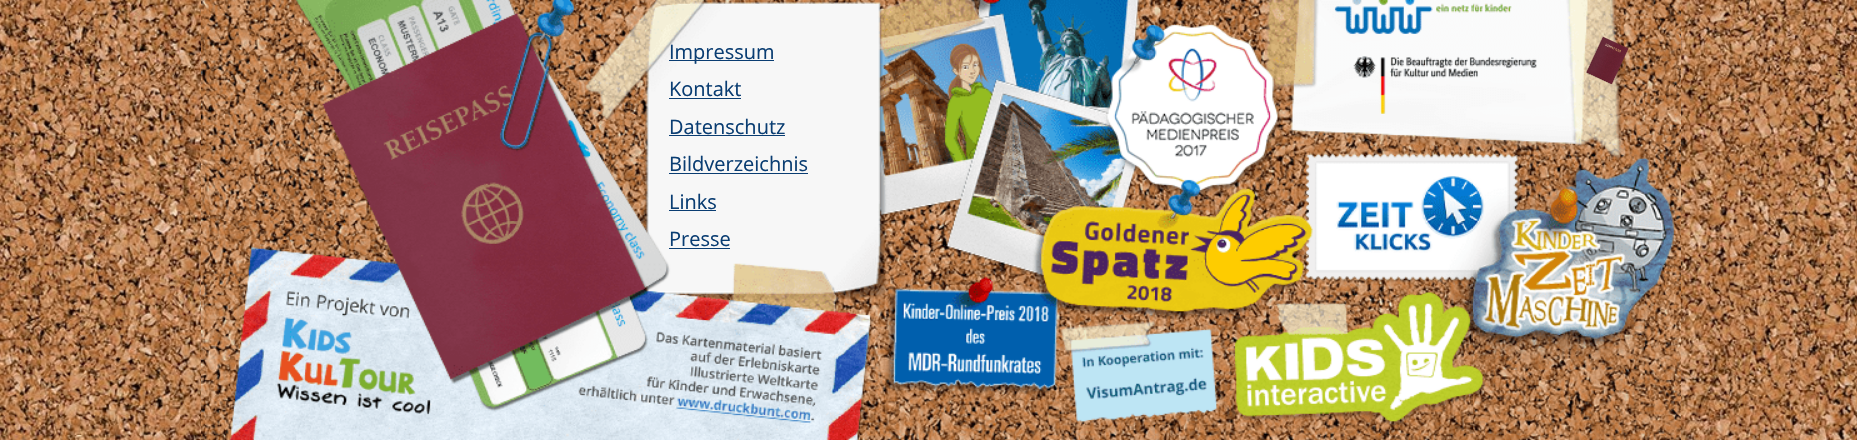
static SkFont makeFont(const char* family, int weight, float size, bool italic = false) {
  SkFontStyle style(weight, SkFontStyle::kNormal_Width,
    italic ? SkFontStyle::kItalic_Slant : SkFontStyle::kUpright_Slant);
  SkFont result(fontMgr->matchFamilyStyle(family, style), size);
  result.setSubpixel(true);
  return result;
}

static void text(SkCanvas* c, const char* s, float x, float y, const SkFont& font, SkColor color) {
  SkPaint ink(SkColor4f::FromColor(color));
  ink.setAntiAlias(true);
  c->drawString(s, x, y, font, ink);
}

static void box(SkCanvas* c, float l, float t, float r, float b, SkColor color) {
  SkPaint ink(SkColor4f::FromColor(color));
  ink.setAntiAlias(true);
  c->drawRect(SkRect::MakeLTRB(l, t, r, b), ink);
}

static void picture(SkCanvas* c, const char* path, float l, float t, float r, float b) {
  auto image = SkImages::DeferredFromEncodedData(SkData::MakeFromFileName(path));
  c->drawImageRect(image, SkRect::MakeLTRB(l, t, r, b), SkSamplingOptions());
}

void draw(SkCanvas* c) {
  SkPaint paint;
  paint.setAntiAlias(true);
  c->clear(0xffffffff);
  picture(c, "img_01.png", 0, 0, 1857, 440);
  picture(c, "img_02.png", 201, 0, 1681, 440);
  box(c, 669, 60, 774, 61, 0xff0a3d72);
  SkFont face1 = makeFont("Open Sans", 400, 20);
  text(c, "Impressum", 669, 59, face1, 0xff0a3d72);
  text(c, "Kontakt", 669, 96, face1, 0xff0a3d72);
  box(c, 669, 98, 741, 99, 0xff0a3d72);
  text(c, "Datenschutz", 669, 134, face1, 0xff0a3d72);
  box(c, 669, 135, 785, 136, 0xff0a3d72);
  text(c, "Bildverzeichnis", 669, 171, face1, 0xff0a3d72);
  box(c, 669, 173, 808, 174, 0xff0a3d72);
  text(c, "Links", 669, 209, face1, 0xff0a3d72);
  box(c, 669, 210, 716, 211, 0xff0a3d72);
  text(c, "Presse", 669, 246, face1, 0xff0a3d72);
  box(c, 669, 248, 730, 249, 0xff0a3d72);
  picture(c, "img_03.png", 1586, 36, 1629, 85);
}
